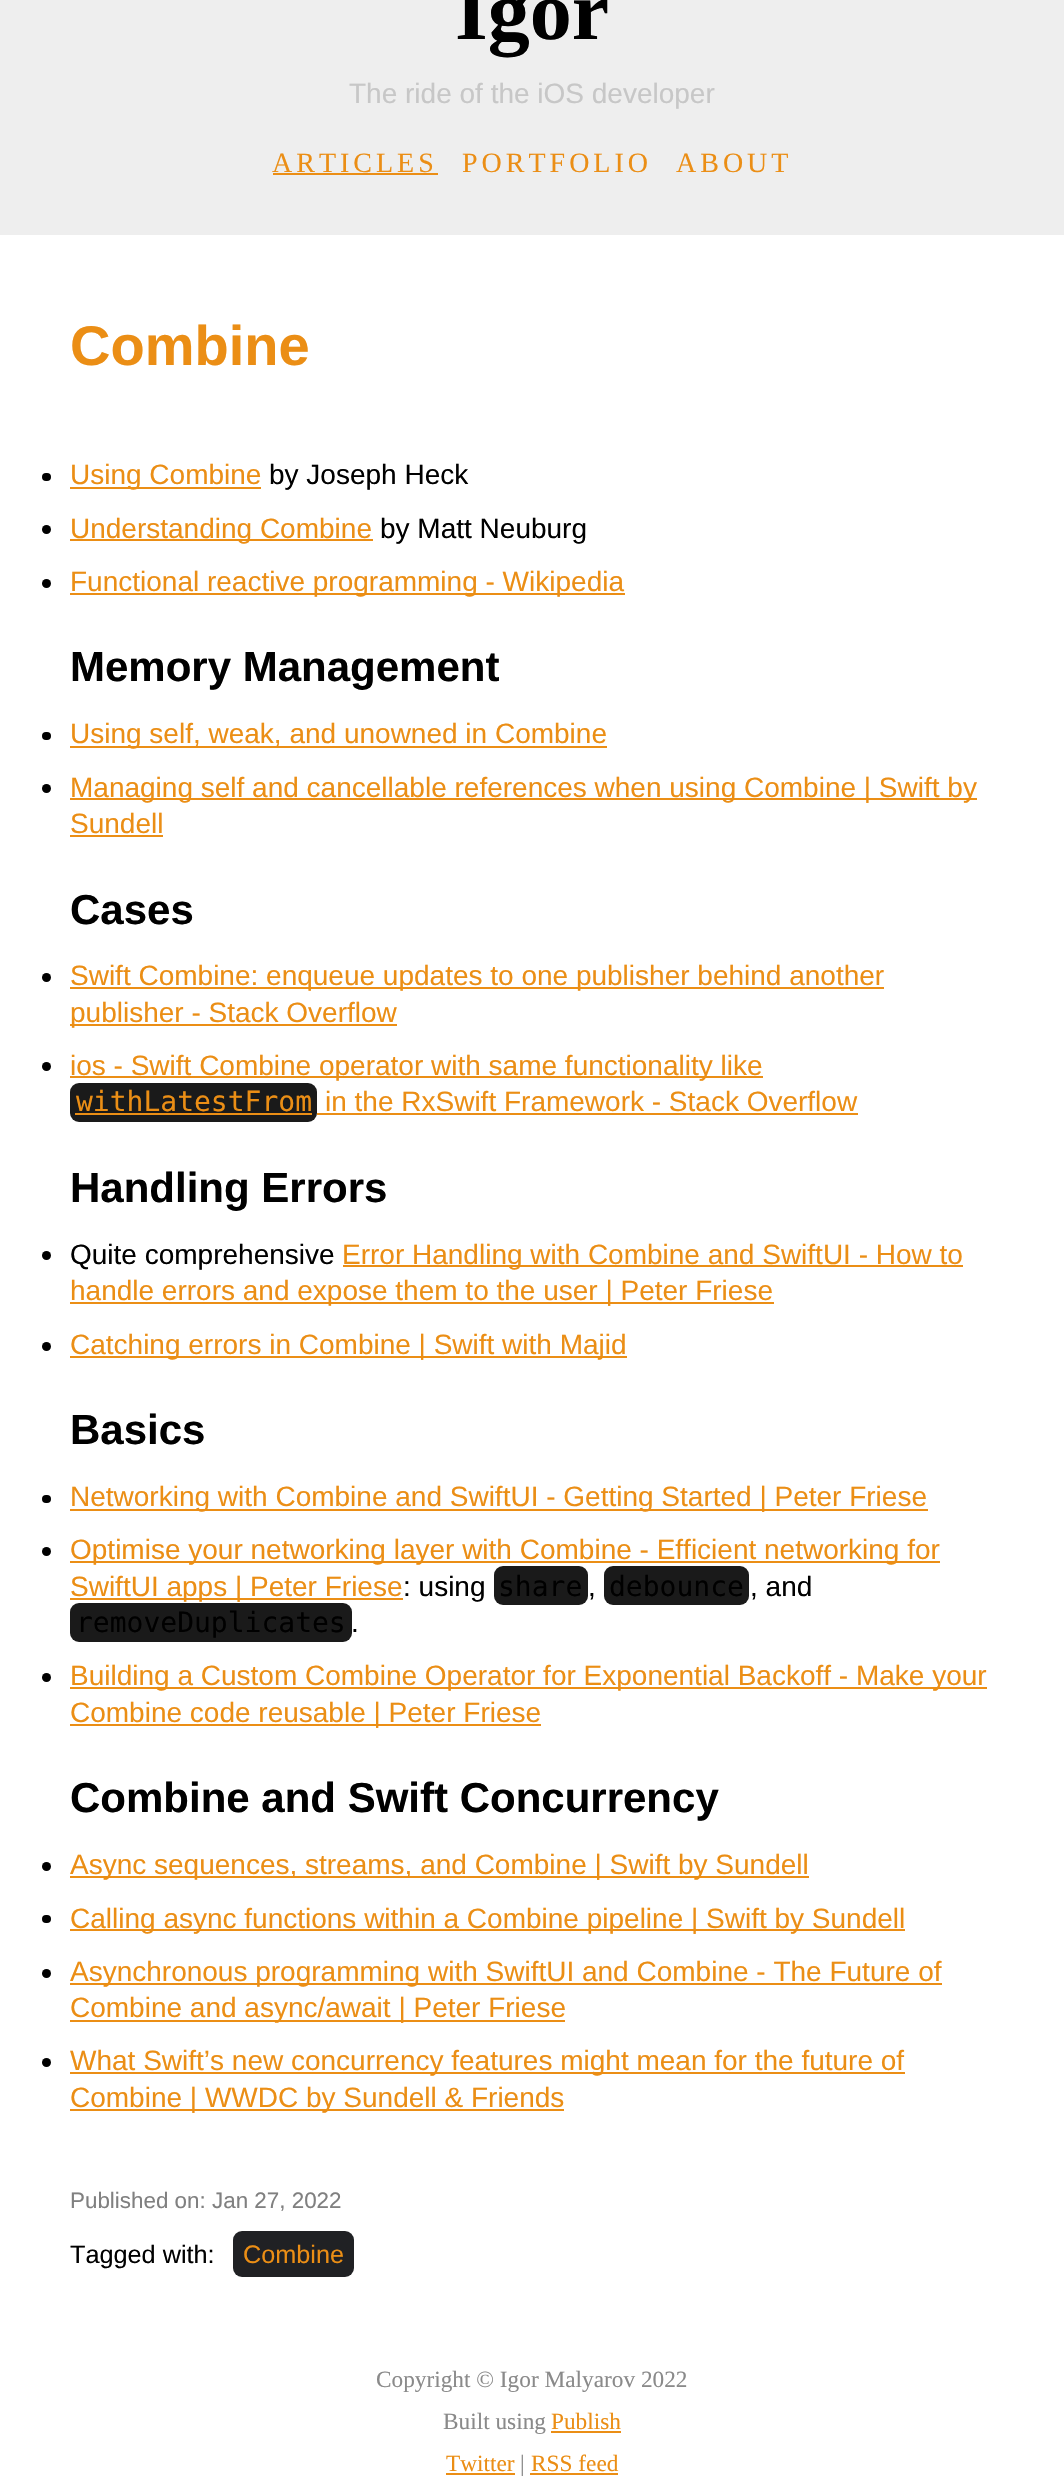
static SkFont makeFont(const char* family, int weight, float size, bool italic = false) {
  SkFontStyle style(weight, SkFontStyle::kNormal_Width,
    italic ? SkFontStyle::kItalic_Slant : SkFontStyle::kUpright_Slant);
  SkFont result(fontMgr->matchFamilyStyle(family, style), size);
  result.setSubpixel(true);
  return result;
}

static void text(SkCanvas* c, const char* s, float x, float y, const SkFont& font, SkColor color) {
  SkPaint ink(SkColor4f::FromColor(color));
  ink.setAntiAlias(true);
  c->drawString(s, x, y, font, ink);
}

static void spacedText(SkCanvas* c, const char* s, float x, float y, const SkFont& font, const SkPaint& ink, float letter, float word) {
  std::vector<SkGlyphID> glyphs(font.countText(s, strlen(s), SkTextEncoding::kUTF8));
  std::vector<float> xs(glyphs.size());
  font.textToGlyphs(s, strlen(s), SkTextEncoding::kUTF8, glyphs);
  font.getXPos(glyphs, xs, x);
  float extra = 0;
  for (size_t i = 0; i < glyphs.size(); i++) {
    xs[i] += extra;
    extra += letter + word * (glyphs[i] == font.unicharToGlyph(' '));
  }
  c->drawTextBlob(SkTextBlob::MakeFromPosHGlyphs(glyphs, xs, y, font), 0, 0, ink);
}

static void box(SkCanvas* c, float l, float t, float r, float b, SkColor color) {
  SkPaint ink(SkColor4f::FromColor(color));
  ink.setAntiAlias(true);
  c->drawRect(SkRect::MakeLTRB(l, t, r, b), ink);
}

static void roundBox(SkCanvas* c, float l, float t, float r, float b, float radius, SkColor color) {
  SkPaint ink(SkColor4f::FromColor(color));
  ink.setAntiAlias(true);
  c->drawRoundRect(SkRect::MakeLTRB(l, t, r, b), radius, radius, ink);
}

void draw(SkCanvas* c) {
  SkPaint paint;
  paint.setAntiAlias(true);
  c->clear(0xffffffff);
  box(c, 0, 0, 1064, 235, 0xffeeeeee);
  SkFont face1 = makeFont("Liberation Serif", 700, 84);
  text(c, "Igor", 455, 39, face1, 0xff000000);
  SkFont face2 = makeFont("Liberation Sans", 400, 28);
  text(c, "The ride of the iOS developer", 349, 103, face2, 0xffc7c7c7);
  SkFont face3 = makeFont("Liberation Serif", 400, 28);
  paint.setColor(0xffeb8e15);
  spacedText(c, "ARTICLES", 272, 172, face3, paint, 4, 0);
  box(c, 273, 173, 438, 175, 0xffeb8e15);
  spacedText(c, "PORTFOLIO", 462, 172, face3, paint, 4, 0);
  spacedText(c, "ABOUT", 676, 172, face3, paint, 4, 0);
  SkFont face4 = makeFont("Liberation Sans", 700, 56);
  text(c, "Combine", 70, 365, face4, 0xffeb8e15);
  roundBox(c, 42, 473, 51, 481, 4, 0xff000000);
  box(c, 70, 487, 261, 489, 0xffeb8e15);
  text(c, "Using Combine", 70, 484, face2, 0xffeb8e15);
  text(c, "by Joseph Heck", 269, 484, face2, 0xff000000);
  paint.setColor(0xff000000);
  c->drawCircle(46.5f, 529.5f, 4.5f, paint);
  box(c, 70, 539, 373, 541, 0xffeb8e15);
  text(c, "Understanding Combine", 70, 538, face2, 0xffeb8e15);
  text(c, "by Matt Neuburg", 380, 538, face2, 0xff000000);
  c->drawCircle(46.5f, 583.5f, 4.5f, paint);
  box(c, 70, 593, 625, 595, 0xffeb8e15);
  text(c, "Functional reactive programming - Wikipedia", 70, 591, face2, 0xffeb8e15);
  SkFont face5 = makeFont("Liberation Sans", 700, 42);
  text(c, "Memory Management", 70, 681, face5, 0xff000000);
  roundBox(c, 42, 732, 51, 740, 4, 0xff000000);
  box(c, 70, 746, 607, 748, 0xffeb8e15);
  text(c, "Using self, weak, and unowned in Combine", 70, 743, face2, 0xffeb8e15);
  c->drawCircle(46.5f, 788.5f, 4.5f, paint);
  box(c, 70, 798, 977, 800, 0xffeb8e15);
  text(c, "Managing self and cancellable references when using Combine | Swift by", 70, 797, face2, 0xffeb8e15);
  text(c, "Sundell", 70, 833, face2, 0xffeb8e15);
  box(c, 70, 835, 163, 837, 0xffeb8e15);
  text(c, "Cases", 70, 924, face5, 0xff000000);
  c->drawCircle(46.5f, 977.5f, 4.5f, paint);
  box(c, 70, 987, 884, 989, 0xffeb8e15);
  text(c, "Swift Combine: enqueue updates to one publisher behind another", 70, 985, face2, 0xffeb8e15);
  box(c, 70, 1024, 397, 1026, 0xffeb8e15);
  text(c, "publisher - Stack Overflow", 70, 1022, face2, 0xffeb8e15);
  c->drawCircle(46.5f, 1066.5f, 4.5f, paint);
  box(c, 70, 1076, 763, 1078, 0xffeb8e15);
  text(c, "ios - Swift Combine operator with same functionality like", 70, 1075, face2, 0xffeb8e15);
  roundBox(c, 70, 1083, 317, 1122, 9, 0xff1a1a1a);
  SkFont face6 = makeFont("DejaVu Sans Mono", 400, 28);
  text(c, "withLatestFrom", 76, 1111, face6, 0xffeb8e15);
  box(c, 75, 1113, 312, 1115, 0xffeb8e15);
  text(c, "in the RxSwift Framework - Stack Overflow", 325, 1111, face2, 0xffeb8e15);
  box(c, 317, 1113, 858, 1115, 0xffeb8e15);
  text(c, "Handling Errors", 70, 1202, face5, 0xff000000);
  c->drawCircle(46.5f, 1255.5f, 4.5f, paint);
  text(c, "Quite comprehensive", 70, 1264, face2, 0xff000000);
  box(c, 343, 1265, 963, 1267, 0xffeb8e15);
  text(c, "Error Handling with Combine and SwiftUI - How to", 342, 1264, face2, 0xffeb8e15);
  box(c, 70, 1302, 774, 1304, 0xffeb8e15);
  text(c, "handle errors and expose them to the user | Peter Friese", 70, 1300, face2, 0xffeb8e15);
  c->drawCircle(46.5f, 1346.5f, 4.5f, paint);
  box(c, 70, 1356, 627, 1358, 0xffeb8e15);
  text(c, "Catching errors in Combine | Swift with Majid", 70, 1354, face2, 0xffeb8e15);
  text(c, "Basics", 70, 1444, face5, 0xff000000);
  roundBox(c, 42, 1495, 51, 1503, 4, 0xff000000);
  box(c, 70, 1509, 928, 1511, 0xffeb8e15);
  text(c, "Networking with Combine and SwiftUI - Getting Started | Peter Friese", 70, 1506, face2, 0xffeb8e15);
  c->drawCircle(46.5f, 1551.5f, 4.5f, paint);
  box(c, 70, 1561, 940, 1563, 0xffeb8e15);
  text(c, "Optimise your networking layer with Combine - Efficient networking for", 70, 1559, face2, 0xffeb8e15);
  box(c, 70, 1598, 403, 1600, 0xffeb8e15);
  text(c, "SwiftUI apps | Peter Friese", 70, 1596, face2, 0xffeb8e15);
  text(c, ": using", 403, 1596, face2, 0xff000000);
  roundBox(c, 494, 1566, 588, 1605, 9, 0xff1a1a1a);
  text(c, "share", 498, 1596, face6, 0xff000000);
  text(c, ",", 588, 1596, face2, 0xff000000);
  roundBox(c, 604, 1566, 749, 1605, 9, 0xff1a1a1a);
  text(c, "debounce", 609, 1596, face6, 0xff000000);
  text(c, ", and", 750, 1596, face2, 0xff000000);
  roundBox(c, 70, 1603, 352, 1642, 9, 0xff1a1a1a);
  text(c, "removeDuplicates", 76, 1632, face6, 0xff000000);
  text(c, ".", 351, 1632, face2, 0xff000000);
  c->drawCircle(46.5f, 1677.5f, 4.5f, paint);
  box(c, 70, 1687, 987, 1689, 0xffeb8e15);
  text(c, "Building a Custom Combine Operator for Exponential Backoff - Make your", 70, 1685, face2, 0xffeb8e15);
  box(c, 70, 1724, 541, 1726, 0xffeb8e15);
  text(c, "Combine code reusable | Peter Friese", 70, 1722, face2, 0xffeb8e15);
  text(c, "Combine and Swift Concurrency", 70, 1812, face5, 0xff000000);
  c->drawCircle(46.5f, 1866.5f, 4.5f, paint);
  box(c, 70, 1876, 809, 1878, 0xffeb8e15);
  text(c, "Async sequences, streams, and Combine | Swift by Sundell", 70, 1874, face2, 0xffeb8e15);
  roundBox(c, 42, 1915, 51, 1923, 4, 0xff000000);
  box(c, 70, 1929, 905, 1931, 0xffeb8e15);
  text(c, "Calling async functions within a Combine pipeline | Swift by Sundell", 70, 1928, face2, 0xffeb8e15);
  c->drawCircle(46.5f, 1973.5f, 4.5f, paint);
  box(c, 70, 1983, 942, 1985, 0xffeb8e15);
  text(c, "Asynchronous programming with SwiftUI and Combine - The Future of", 70, 1981, face2, 0xffeb8e15);
  box(c, 70, 2020, 565, 2022, 0xffeb8e15);
  text(c, "Combine and async/await | Peter Friese", 70, 2017, face2, 0xffeb8e15);
  c->drawCircle(46.5f, 2062.5f, 4.5f, paint);
  box(c, 70, 2072, 905, 2074, 0xffeb8e15);
  text(c, "What Swift’s new concurrency features might mean for the future of", 70, 2070, face2, 0xffeb8e15);
  box(c, 70, 2109, 564, 2111, 0xffeb8e15);
  text(c, "Combine | WWDC by Sundell & Friends", 70, 2107, face2, 0xffeb8e15);
  SkFont face7 = makeFont("Liberation Sans", 400, 22.4f);
  text(c, "Published on: Jan 27, 2022", 70, 2208, face7, 0xff808080);
  SkFont face8 = makeFont("Liberation Sans", 400, 25.25f);
  text(c, "Tagged with:", 70, 2263, face8, 0xff000000);
  roundBox(c, 233, 2231, 354, 2277, 9, 0xff202124);
  text(c, "Combine", 243, 2263, face8, 0xffeb8e15);
  SkFont face9 = makeFont("Liberation Serif", 400, 23.3f);
  text(c, "Copyright © Igor Malyarov 2022", 376, 2387, face9, 0xff8a8a8a);
  text(c, "Built using", 443, 2429, face9, 0xff8a8a8a);
  text(c, "Publish", 551, 2429, face9, 0xffeb8e15);
  box(c, 551, 2431, 621, 2433, 0xffeb8e15);
  text(c, "Twitter", 446, 2471, face9, 0xffeb8e15);
  box(c, 446, 2473, 515, 2475, 0xffeb8e15);
  text(c, "|", 520, 2471, face9, 0xff8a8a8a);
  text(c, "RSS feed", 531, 2471, face9, 0xffeb8e15);
  box(c, 530, 2473, 618, 2475, 0xffeb8e15);
}
